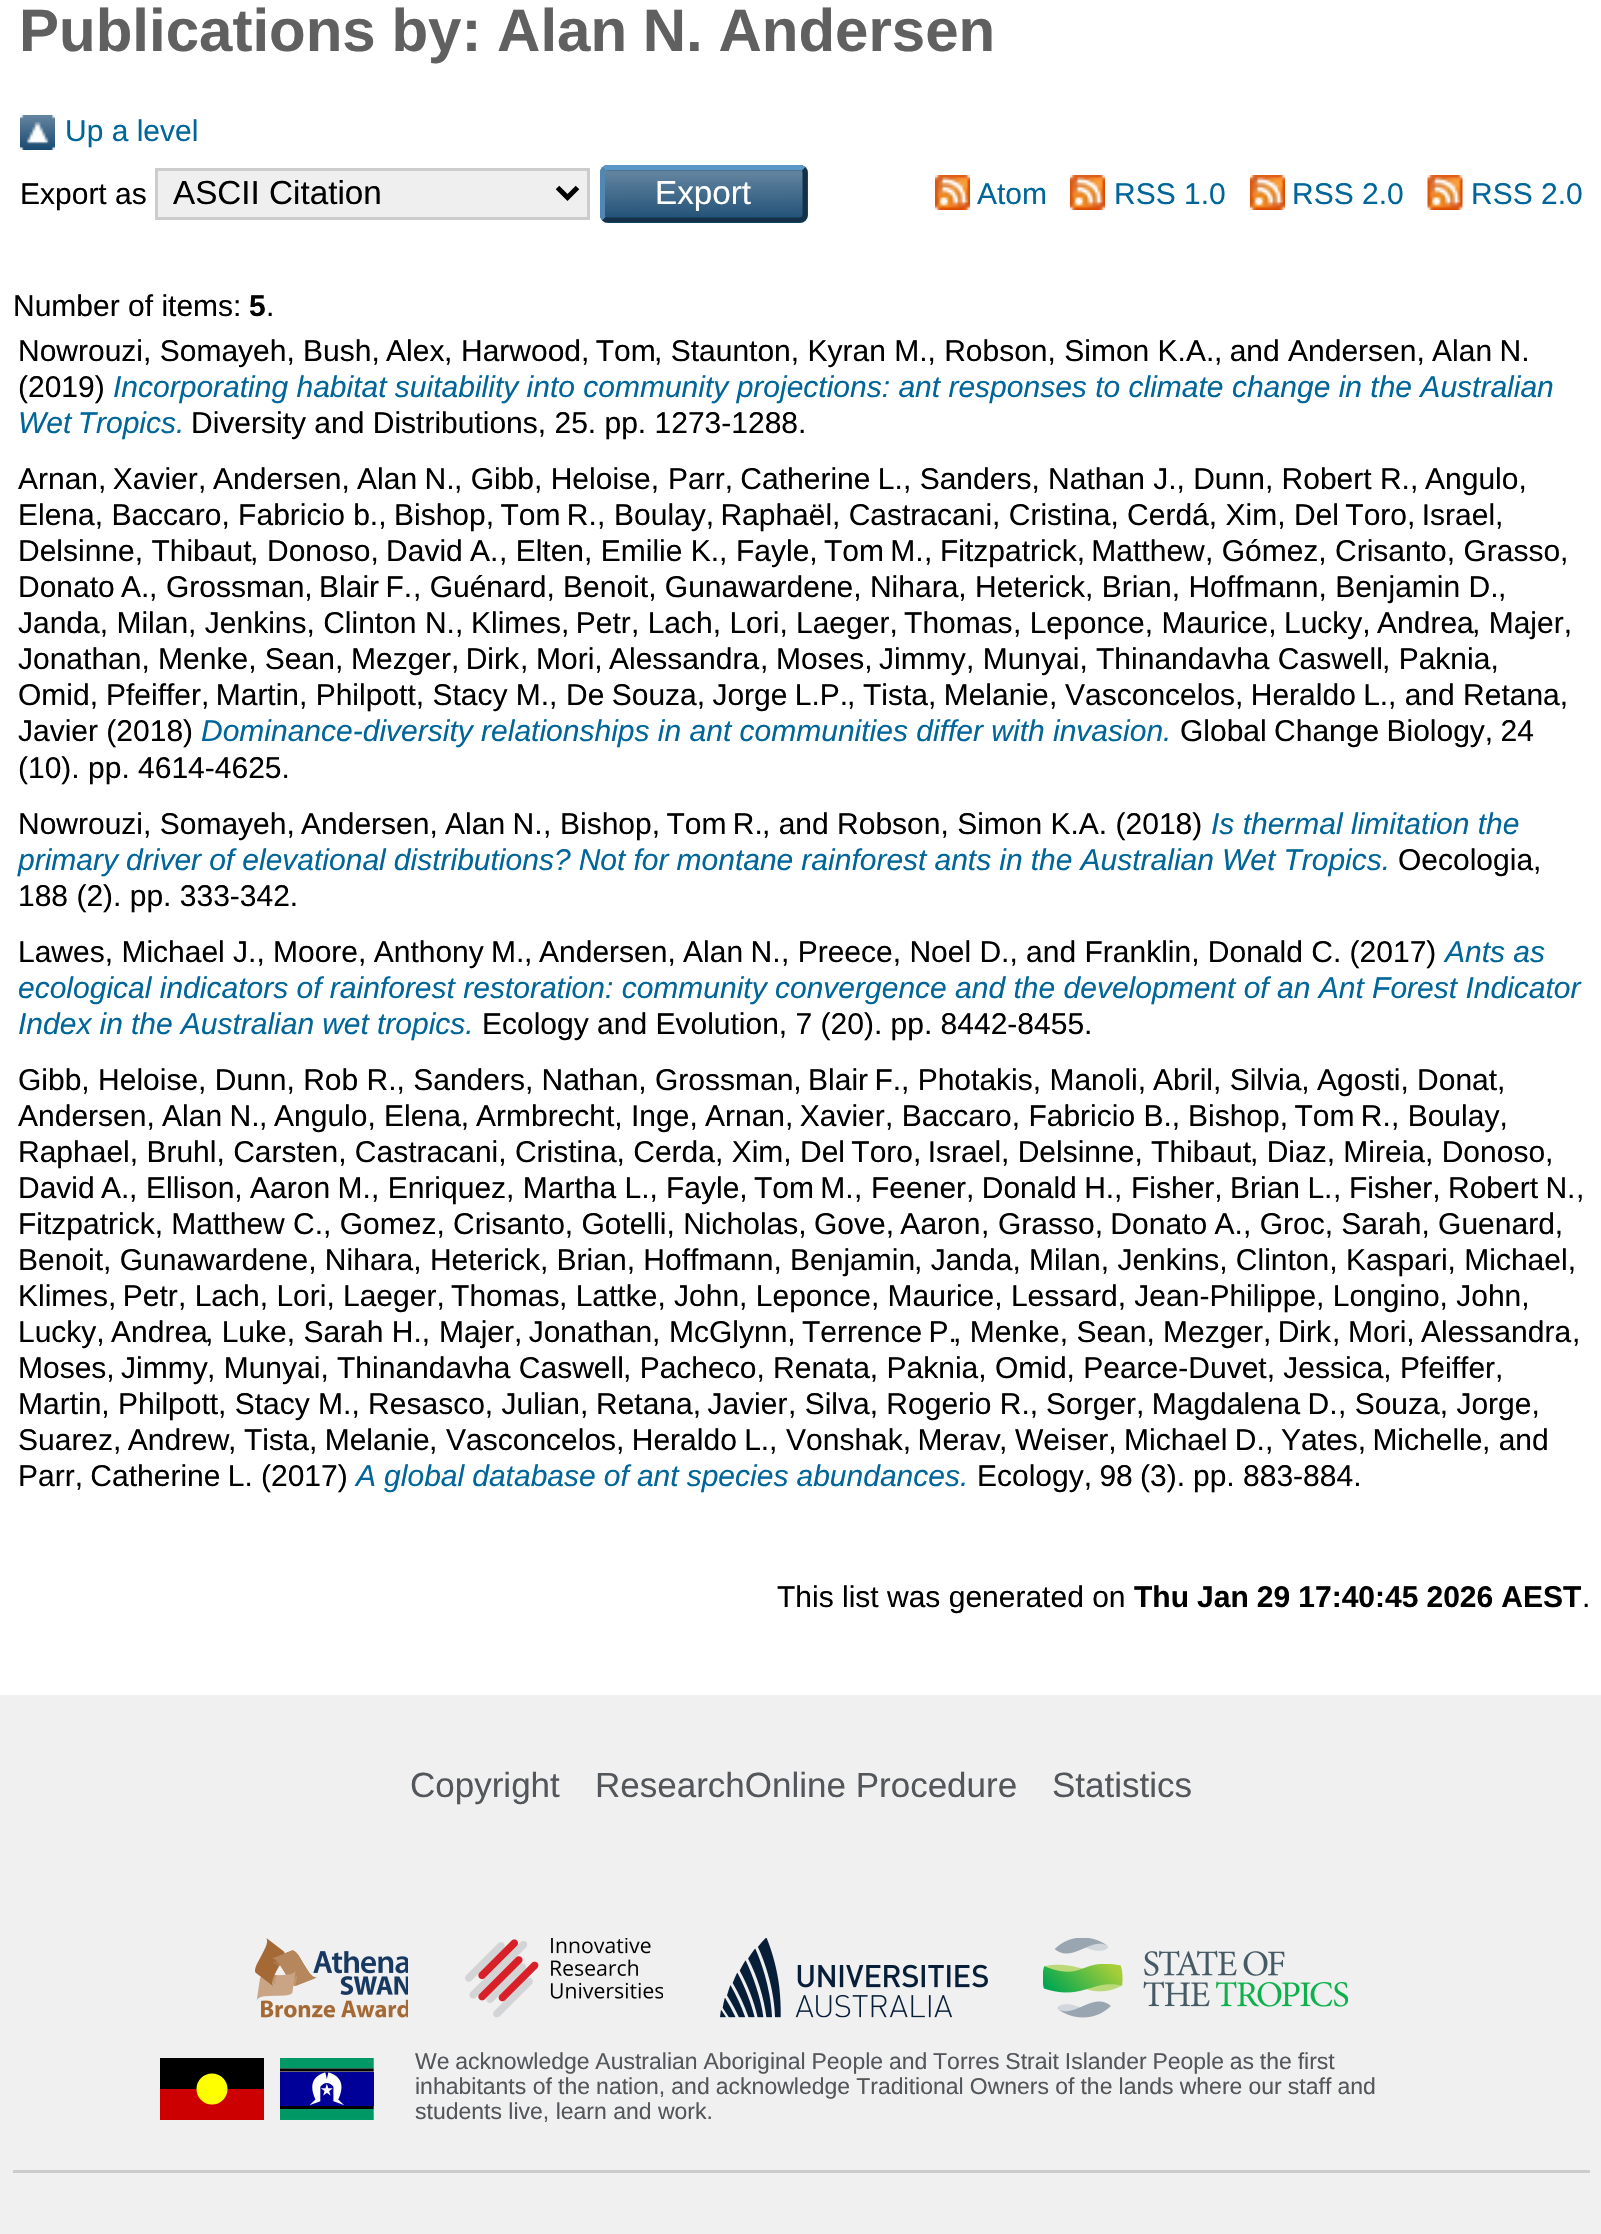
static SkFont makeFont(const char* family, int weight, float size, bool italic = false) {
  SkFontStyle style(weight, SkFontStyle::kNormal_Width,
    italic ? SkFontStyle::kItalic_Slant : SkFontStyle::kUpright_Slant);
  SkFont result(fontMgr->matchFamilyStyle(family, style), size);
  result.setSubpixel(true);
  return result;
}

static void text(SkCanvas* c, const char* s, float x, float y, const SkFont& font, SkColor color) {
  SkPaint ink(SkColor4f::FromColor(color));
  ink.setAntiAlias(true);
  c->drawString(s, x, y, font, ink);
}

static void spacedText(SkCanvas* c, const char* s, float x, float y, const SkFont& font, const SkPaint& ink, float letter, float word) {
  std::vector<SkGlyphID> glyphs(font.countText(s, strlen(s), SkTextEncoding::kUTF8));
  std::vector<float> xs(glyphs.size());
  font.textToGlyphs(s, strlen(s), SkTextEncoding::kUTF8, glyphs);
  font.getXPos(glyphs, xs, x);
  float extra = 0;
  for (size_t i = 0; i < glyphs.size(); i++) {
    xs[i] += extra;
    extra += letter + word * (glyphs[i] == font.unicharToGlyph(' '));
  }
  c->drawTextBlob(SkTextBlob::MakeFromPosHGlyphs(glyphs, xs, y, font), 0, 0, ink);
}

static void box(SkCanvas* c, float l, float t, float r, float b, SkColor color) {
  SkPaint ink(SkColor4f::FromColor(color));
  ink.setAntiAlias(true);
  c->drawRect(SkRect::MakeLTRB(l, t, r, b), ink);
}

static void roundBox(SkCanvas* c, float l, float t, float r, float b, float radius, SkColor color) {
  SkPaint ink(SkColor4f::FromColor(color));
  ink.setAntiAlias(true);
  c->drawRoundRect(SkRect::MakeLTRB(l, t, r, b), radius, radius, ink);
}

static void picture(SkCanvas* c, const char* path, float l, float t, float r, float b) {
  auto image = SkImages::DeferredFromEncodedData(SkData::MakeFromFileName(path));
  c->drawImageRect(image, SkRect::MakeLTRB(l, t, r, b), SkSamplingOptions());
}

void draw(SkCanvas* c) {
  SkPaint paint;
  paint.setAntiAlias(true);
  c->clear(0xffffffff);
  SkFont face1 = makeFont("Liberation Sans", 700, 60);
  paint.setColor(0xff606060);
  spacedText(c, "Publications by: Alan N. Andersen", 19, 51, face1, paint, 0, -1);
  picture(c, "img_01.png", 20, 115, 55, 150);
  SkFont face2 = makeFont("Liberation Sans", 400, 30);
  text(c, "Up a level", 65, 141, face2, 0xff006699);
  text(c, "Export as", 20, 204, face2, 0xff000000);
  paint.setColor(0xffefefef);
  c->drawRect(SkRect::MakeLTRB(156.5f, 169.5f, 588.5f, 218.5f), paint);
  paint.setStyle(SkPaint::kStroke_Style);
  paint.setStrokeWidth(3);
  paint.setColor(0xffcccccc);
  c->drawRect(SkRect::MakeLTRB(156.5f, 169.5f, 588.5f, 218.5f), paint);
  paint.setStrokeWidth(5);
  paint.setColor(0xff000000);
  c->drawPath(SkPathBuilder().moveTo(557.5f, 187.5f).lineTo(567.5f, 197.5f).lineTo(577.5f, 187.5f).detach(), paint);
  SkFont face3 = makeFont("Liberation Sans", 400, 33.25f);
  text(c, "ASCII Citation", 173, 204, face3, 0xff000000);
  roundBox(c, 600, 165, 808, 223, 8, 0xff1f4f76);
  picture(c, "img_02.png", 600, 169, 808, 217);
  paint.setColor(0xff5b97c7);
  c->drawPath(SkPathBuilder().moveTo(604, 169).cubicTo(605, 168, 606, 167.5f, 607.5f, 167.5f).lineTo(800, 167.5f).cubicTo(801.5f, 167.5f, 802.5f, 168, 803.5f, 169).detach(), paint);
  paint.setColor(0xff13324a);
  c->drawPath(SkPathBuilder().moveTo(803.5f, 169).cubicTo(804.5f, 170, 805, 171, 805, 172.5f).lineTo(805, 215).cubicTo(805, 216.5f, 804.5f, 217.5f, 803.5f, 218.5f).cubicTo(802.5f, 219.5f, 801.5f, 220, 800, 220).lineTo(607.5f, 220).cubicTo(606, 220, 605, 219.5f, 604, 218.5f).detach(), paint);
  paint.setColor(0xff5287b3);
  c->drawPath(SkPathBuilder().moveTo(604, 218.5f).cubicTo(603, 217.5f, 602.5f, 216.5f, 602.5f, 215).lineTo(602.5f, 172.5f).cubicTo(602.5f, 171, 603, 170, 604, 169).detach(), paint);
  text(c, "Export", 655, 204, face3, 0xffffffff);
  picture(c, "img_03.png", 935, 175, 970, 210);
  text(c, "Atom", 977, 204, face2, 0xff006699);
  picture(c, "img_04.png", 1070, 175, 1105, 210);
  text(c, "RSS 1.0", 1114, 204, face2, 0xff006699);
  picture(c, "img_05.png", 1250, 175, 1285, 210);
  text(c, "RSS 2.0", 1292, 204, face2, 0xff006699);
  picture(c, "img_06.png", 1427, 175, 1463, 210);
  text(c, "RSS 2.0", 1471, 204, face2, 0xff006699);
  text(c, "Number of items:", 13, 316, face2, 0xff000000);
  SkFont face4 = makeFont("Liberation Sans", 700, 30);
  text(c, "5", 249, 316, face4, 0xff000000);
  text(c, ".", 266, 316, face2, 0xff000000);
  text(c, "Nowrouzi, Somayeh,", 18, 361, face2, 0xff000000);
  paint.setStyle(SkPaint::kFill_Style);
  paint.setColor(0xff000000);
  spacedText(c, "Bush, Alex", 303, 361, face2, paint, 0, -2);
  text(c, ",", 444, 361, face2, 0xff000000);
  spacedText(c, "Harwood, Tom", 461, 361, face2, paint, 0, -2);
  text(c, ", Staunton, Kyran M., Robson, Simon K.A.", 654, 361, face2, 0xff000000);
  spacedText(c, ", and", 1214, 361, face2, paint, 0, -1);
  spacedText(c, "Andersen, Alan N.", 1288, 361, face2, paint, 0, -1);
  text(c, "(2019)", 18, 397, face2, 0xff000000);
  SkFont face5 = makeFont("Liberation Sans", 400, 30, true);
  text(c, "Incorporating habitat suitability into community projections: ant responses to climate change in the Australian", 113, 397, face5, 0xff006699);
  paint.setColor(0xff006699);
  spacedText(c, "Wet Tropics.", 18, 433, face5, paint, 0, -2);
  text(c, "Diversity and Distributions, 25. pp. 1273-1288.", 191, 433, face2, 0xff000000);
  paint.setColor(0xff000000);
  spacedText(c, "Arnan, Xavier", 18, 489, face2, paint, 0, -2);
  text(c, ",", 198, 489, face2, 0xff000000);
  spacedText(c, "Andersen, Alan N.", 213, 489, face2, paint, 0, -1);
  text(c, ", Gibb, Heloise,", 454, 489, face2, 0xff000000);
  spacedText(c, "Parr, Catherine L.", 668, 489, face2, paint, 0, -1);
  text(c, ", Sanders, Nathan J., Dunn, Robert R.,", 903, 489, face2, 0xff000000);
  text(c, "Angulo,", 1425, 489, face2, 0xff000000);
  text(c, "Elena, Baccaro, Fabricio b.,", 18, 525, face2, 0xff000000);
  spacedText(c, "Bishop, Tom R.", 394, 525, face2, paint, 0, -2);
  text(c, ",", 597, 525, face2, 0xff000000);
  spacedText(c, "Boulay, Raphaël", 614, 525, face2, paint, 0, -2);
  text(c, ", Castracani, Cristina, Cerdá, Xim,", 832, 525, face2, 0xff000000);
  spacedText(c, "Del Toro, Israel", 1294, 525, face2, paint, 0, -2);
  text(c, ",", 1495, 525, face2, 0xff000000);
  text(c, "Delsinne, Thibaut", 18, 561, face2, 0xff000000);
  text(c, ",", 250, 561, face2, 0xff000000);
  spacedText(c, "Donoso, David A.", 267, 561, face2, paint, 0, -1);
  text(c, ", Elten, Emilie K.,", 499, 561, face2, 0xff000000);
  spacedText(c, "Fayle, Tom M.", 736, 561, face2, paint, 0, -2);
  text(c, ",", 924, 561, face2, 0xff000000);
  spacedText(c, "Fitzpatrick, Matthew", 940, 561, face2, paint, 0, -2);
  text(c, ", Gómez, Crisanto, Grasso,", 1205, 561, face2, 0xff000000);
  spacedText(c, "Donato A.", 18, 597, face2, paint, 0, -2);
  text(c, ",", 149, 597, face2, 0xff000000);
  spacedText(c, "Grossman, Blair F.", 166, 597, face2, paint, 0, -2);
  text(c, ", Guénard, Benoit, Gunawardene, Nihara, Heterick, Brian, Hoffmann, Benjamin D.", 413, 597, face2, 0xff000000);
  text(c, ",", 1498, 597, face2, 0xff000000);
  text(c, "Janda, Milan, Jenkins, Clinton N.,", 18, 633, face2, 0xff000000);
  spacedText(c, "Klimes, Petr", 471, 633, face2, paint, 0, -2);
  text(c, ", Lach, Lori,", 631, 633, face2, 0xff000000);
  spacedText(c, "Laeger, Thomas", 796, 633, face2, paint, 0, -2);
  text(c, ", Leponce, Maurice,", 1013, 633, face2, 0xff000000);
  spacedText(c, "Lucky, Andrea", 1284, 633, face2, paint, 0, -2);
  text(c, ", Majer,", 1472, 633, face2, 0xff000000);
  text(c, "Jonathan, Menke, Sean,", 18, 669, face2, 0xff000000);
  spacedText(c, "Mezger, Dirk", 351, 669, face2, paint, 0, -2);
  text(c, ",", 520, 669, face2, 0xff000000);
  spacedText(c, "Mori, Alessandra", 536, 669, face2, paint, 0, -2);
  text(c, ",", 760, 669, face2, 0xff000000);
  spacedText(c, "Moses, Jimmy", 776, 669, face2, paint, 0, -2);
  text(c, ", Munyai, Thinandavha Caswell", 966, 669, face2, 0xff000000);
  text(c, ", Paknia,", 1382, 669, face2, 0xff000000);
  text(c, "Omid,", 18, 705, face2, 0xff000000);
  spacedText(c, "Pfeiffer, Martin", 106, 705, face2, paint, 0, -2);
  text(c, ", Philpott, Stacy M.,", 299, 705, face2, 0xff000000);
  spacedText(c, "De Souza, Jorge L.P.", 566, 705, face2, paint, 0, -1);
  text(c, ",", 847, 705, face2, 0xff000000);
  spacedText(c, "Tista, Melanie", 863, 705, face2, paint, 0, -1);
  text(c, ",", 1049, 705, face2, 0xff000000);
  spacedText(c, "Vasconcelos, Heraldo L.", 1065, 705, face2, paint, 0, -1);
  text(c, ", and Retana,", 1388, 705, face2, 0xff000000);
  text(c, "Javier (2018)", 18, 741, face2, 0xff000000);
  text(c, "Dominance-diversity relationships in ant communities differ with invasion.", 201, 741, face5, 0xff006699);
  spacedText(c, "Global Change Biology, 24", 1180, 741, face2, paint, 0, -1);
  text(c, "(10). pp. 4614-4625.", 18, 778, face2, 0xff000000);
  text(c, "Nowrouzi, Somayeh,", 18, 834, face2, 0xff000000);
  spacedText(c, "Andersen, Alan N.", 301, 834, face2, paint, 0, -1);
  text(c, ",", 543, 834, face2, 0xff000000);
  spacedText(c, "Bishop, Tom R.", 560, 834, face2, paint, 0, -2);
  text(c, ", and Robson, Simon K.A. (2018)", 762, 834, face2, 0xff000000);
  text(c, "Is thermal limitation the", 1211, 834, face5, 0xff006699);
  paint.setColor(0xff006699);
  spacedText(c, "primary driver of elevational distributions? Not for montane rainforest ants in the Australian Wet Tropics.", 18, 870, face5, paint, 0, -0.25f);
  text(c, "Oecologia,", 1398, 870, face2, 0xff000000);
  text(c, "188 (2). pp. 333-342.", 18, 906, face2, 0xff000000);
  text(c, "Lawes, Michael J.,", 18, 962, face2, 0xff000000);
  paint.setColor(0xff000000);
  spacedText(c, "Moore, Anthony M.", 273, 962, face2, paint, 0, -1);
  text(c, ",", 524, 962, face2, 0xff000000);
  spacedText(c, "Andersen, Alan N.", 539, 962, face2, paint, 0, -1);
  text(c, ", Preece, Noel D., and Franklin, Donald C. (2017)", 781, 962, face2, 0xff000000);
  text(c, "Ants as", 1445, 962, face5, 0xff006699);
  text(c, "ecological indicators of rainforest restoration: community convergence and the development of an Ant Forest Indicator", 18, 998, face5, 0xff006699);
  paint.setColor(0xff006699);
  spacedText(c, "Index in the Australian wet tropics.", 18, 1034, face5, paint, 0, -0.25f);
  text(c, "Ecology and Evolution, 7 (20). pp. 8442-8455.", 482, 1034, face2, 0xff000000);
  text(c, "Gibb, Heloise, Dunn, Rob R., Sanders, Nathan,", 18, 1090, face2, 0xff000000);
  paint.setColor(0xff000000);
  spacedText(c, "Grossman, Blair F.", 655, 1090, face2, paint, 0, -2);
  text(c, ", Photakis, Manoli,", 901, 1090, face2, 0xff000000);
  text(c, "Abril, Silvia,", 1153, 1090, face2, 0xff000000);
  text(c, "Agosti, Donat,", 1317, 1090, face2, 0xff000000);
  spacedText(c, "Andersen, Alan N.", 18, 1126, face2, paint, 0, -1);
  text(c, ",", 259, 1126, face2, 0xff000000);
  text(c, "Angulo, Elena,", 274, 1126, face2, 0xff000000);
  text(c, "Armbrecht, Inge,", 476, 1126, face2, 0xff000000);
  spacedText(c, "Arnan, Xavier", 705, 1126, face2, paint, 0, -2);
  text(c, ", Baccaro, Fabricio B.,", 885, 1126, face2, 0xff000000);
  spacedText(c, "Bishop, Tom R.", 1188, 1126, face2, paint, 0, -2);
  text(c, ", Boulay,", 1391, 1126, face2, 0xff000000);
  text(c, "Raphael, Bruhl, Carsten, Castracani, Cristina, Cerda, Xim,", 18, 1162, face2, 0xff000000);
  spacedText(c, "Del Toro, Israel", 800, 1162, face2, paint, 0, -2);
  text(c, ", Delsinne, Thibaut", 1001, 1162, face2, 0xff000000);
  text(c, ", Diaz, Mireia, Donoso,", 1250, 1162, face2, 0xff000000);
  spacedText(c, "David A.", 18, 1198, face2, paint, 0, -2);
  text(c, ",", 129, 1198, face2, 0xff000000);
  spacedText(c, "Ellison, Aaron M.", 146, 1198, face2, paint, 0, -1);
  text(c, ", Enriquez, Martha L.,", 371, 1198, face2, 0xff000000);
  spacedText(c, "Fayle, Tom M.", 666, 1198, face2, paint, 0, -2);
  text(c, ",", 854, 1198, face2, 0xff000000);
  spacedText(c, "Feener, Donald H.", 871, 1198, face2, paint, 0, -1);
  text(c, ",", 1114, 1198, face2, 0xff000000);
  spacedText(c, "Fisher, Brian L.", 1131, 1198, face2, paint, 0, -1);
  text(c, ",", 1333, 1198, face2, 0xff000000);
  spacedText(c, "Fisher, Robert N.", 1349, 1198, face2, paint, 0, -1);
  text(c, ",", 1576, 1198, face2, 0xff000000);
  text(c, "Fitzpatrick, Matthew C., Gomez, Crisanto, Gotelli, Nicholas,", 18, 1234, face2, 0xff000000);
  spacedText(c, "Gove, Aaron", 814, 1234, face2, paint, 0, -2);
  text(c, ",", 981, 1234, face2, 0xff000000);
  spacedText(c, "Grasso, Donato A.", 998, 1234, face2, paint, 0, -1);
  text(c, ", Groc, Sarah, Guenard,", 1243, 1234, face2, 0xff000000);
  text(c, "Benoit, Gunawardene, Nihara, Heterick, Brian, Hoffmann, Benjamin", 18, 1270, face2, 0xff000000);
  text(c, ", Janda, Milan, Jenkins, Clinton, Kaspari, Michael,", 914, 1270, face2, 0xff000000);
  spacedText(c, "Klimes, Petr", 18, 1306, face2, paint, 0, -2);
  text(c, ", Lach, Lori,", 178, 1306, face2, 0xff000000);
  spacedText(c, "Laeger, Thomas", 343, 1306, face2, paint, 0, -2);
  text(c, ", Lattke, John, Leponce, Maurice, Lessard, Jean-Philippe, Longino, John,", 559, 1306, face2, 0xff000000);
  spacedText(c, "Lucky, Andrea", 18, 1342, face2, paint, 0, -2);
  text(c, ", Luke, Sarah H.,", 205, 1342, face2, 0xff000000);
  spacedText(c, "Majer, Jonathan", 439, 1342, face2, paint, 0, -2);
  text(c, ",", 652, 1342, face2, 0xff000000);
  spacedText(c, "McGlynn, Terrence P.", 669, 1342, face2, paint, 0, -2);
  text(c, ", Menke, Sean,", 953, 1342, face2, 0xff000000);
  spacedText(c, "Mezger, Dirk", 1163, 1342, face2, paint, 0, -2);
  text(c, ",", 1332, 1342, face2, 0xff000000);
  spacedText(c, "Mori, Alessandra", 1348, 1342, face2, paint, 0, -2);
  text(c, ",", 1572, 1342, face2, 0xff000000);
  spacedText(c, "Moses, Jimmy", 18, 1378, face2, paint, 0, -2);
  text(c, ", Munyai, Thinandavha Caswell", 207, 1378, face2, 0xff000000);
  text(c, ", Pacheco, Renata, Paknia, Omid, Pearce-Duvet, Jessica, Pfeiffer,", 623, 1378, face2, 0xff000000);
  text(c, "Martin, Philpott, Stacy M., Resasco, Julian,", 18, 1414, face2, 0xff000000);
  spacedText(c, "Retana, Javier", 596, 1414, face2, paint, 0, -2);
  text(c, ", Silva, Rogerio R.,", 788, 1414, face2, 0xff000000);
  spacedText(c, "Sorger, Magdalena D.", 1046, 1414, face2, paint, 0, -1);
  text(c, ", Souza, Jorge,", 1338, 1414, face2, 0xff000000);
  spacedText(c, "Suarez, Andrew", 18, 1450, face2, paint, 0, -2);
  text(c, ",", 228, 1450, face2, 0xff000000);
  spacedText(c, "Tista, Melanie", 244, 1450, face2, paint, 0, -1);
  text(c, ",", 429, 1450, face2, 0xff000000);
  spacedText(c, "Vasconcelos, Heraldo L.", 446, 1450, face2, paint, 0, -1);
  text(c, ",", 769, 1450, face2, 0xff000000);
  spacedText(c, "Vonshak, Merav", 786, 1450, face2, paint, 0, -2);
  text(c, ",", 999, 1450, face2, 0xff000000);
  spacedText(c, "Weiser, Michael D.", 1015, 1450, face2, paint, 0, -1);
  text(c, ",", 1265, 1450, face2, 0xff000000);
  spacedText(c, "Yates, Michelle", 1281, 1450, face2, paint, 0, -2);
  text(c, ", and", 1482, 1450, face2, 0xff000000);
  spacedText(c, "Parr, Catherine L.", 18, 1486, face2, paint, 0, -1);
  text(c, "(2017)", 261, 1486, face2, 0xff000000);
  paint.setColor(0xff006699);
  spacedText(c, "A global database of ant species abundances.", 356, 1486, face5, paint, 0, -0.25f);
  paint.setColor(0xff000000);
  spacedText(c, "Ecology, 98 (3).", 977, 1486, face2, paint, 0, -1);
  text(c, "pp. 883-884.", 1193, 1486, face2, 0xff000000);
  text(c, "This list was generated on", 777, 1607, face2, 0xff000000);
  spacedText(c, "Thu Jan 29 17:40:45 2026 AEST", 1134, 1607, face4, paint, 0, -0.25f);
  text(c, ".", 1582, 1607, face2, 0xff000000);
  box(c, 0, 1695, 1601, 2234, 0xfff0f0f0);
  SkFont face6 = makeFont("Liberation Sans", 400, 35);
  text(c, "Copyright", 410, 1797, face6, 0xff53565a);
  text(c, "ResearchOnline Procedure", 595, 1797, face6, 0xff53565a);
  text(c, "Statistics", 1052, 1797, face6, 0xff53565a);
  picture(c, "img_07.png", 255, 1938, 408, 2018);
  picture(c, "img_08.png", 465, 1938, 663, 2018);
  picture(c, "img_09.png", 720, 1938, 988, 2018);
  picture(c, "img_10.png", 1043, 1938, 1348, 2018);
  box(c, 160, 2058, 264, 2089, 0xff000000);
  box(c, 160, 2089, 264, 2120, 0xffcc0000);
  paint.setColor(0xffffff00);
  c->drawCircle(212, 2089, 15.5f, paint);
  picture(c, "img_11.png", 280, 2058, 374, 2120);
  SkFont face7 = makeFont("Liberation Sans", 400, 23);
  paint.setColor(0xff53565a);
  spacedText(c, "We acknowledge Australian Aboriginal People and Torres Strait Islander People as the first", 415, 2069, face7, paint, 0, -0.6f);
  text(c, "inhabitants of", 415, 2094, face7, 0xff53565a);
  spacedText(c, "the nation, and acknowledge Traditional Owners of the lands where our staff and", 558, 2094, face7, paint, 0, -0.25f);
  text(c, "students live, learn and work.", 415, 2119, face7, 0xff53565a);
  box(c, 13, 2170, 1590, 2173, 0xffcccccc);
}
